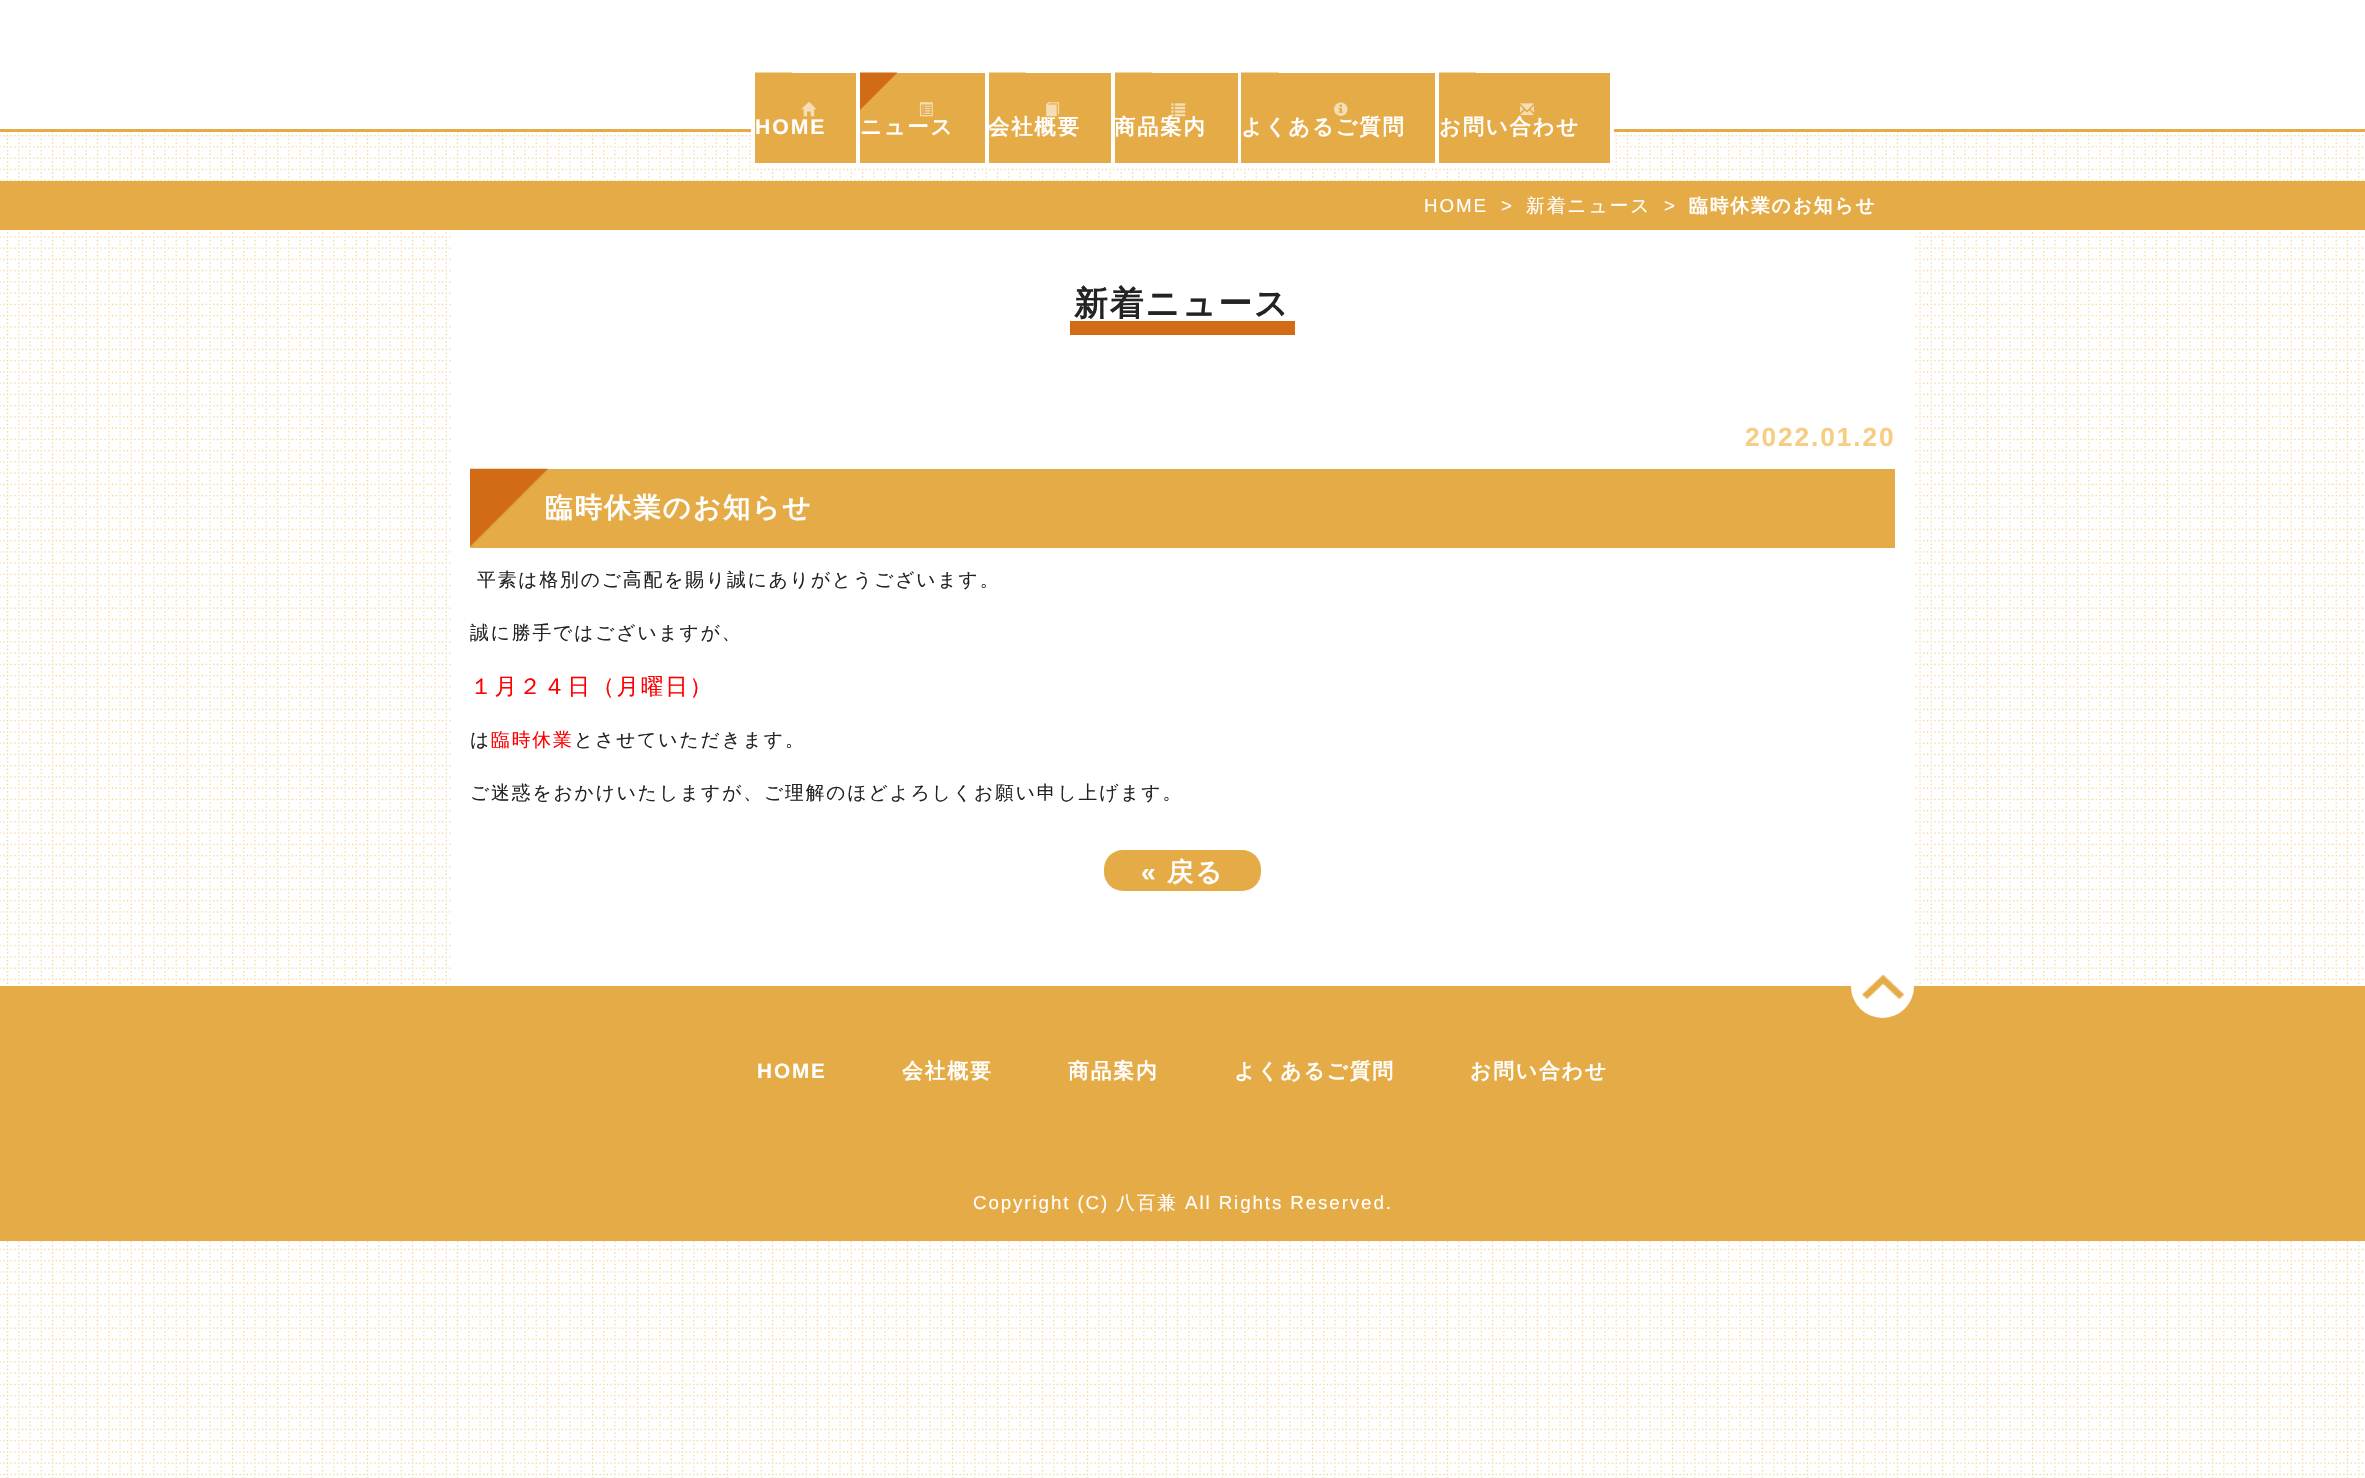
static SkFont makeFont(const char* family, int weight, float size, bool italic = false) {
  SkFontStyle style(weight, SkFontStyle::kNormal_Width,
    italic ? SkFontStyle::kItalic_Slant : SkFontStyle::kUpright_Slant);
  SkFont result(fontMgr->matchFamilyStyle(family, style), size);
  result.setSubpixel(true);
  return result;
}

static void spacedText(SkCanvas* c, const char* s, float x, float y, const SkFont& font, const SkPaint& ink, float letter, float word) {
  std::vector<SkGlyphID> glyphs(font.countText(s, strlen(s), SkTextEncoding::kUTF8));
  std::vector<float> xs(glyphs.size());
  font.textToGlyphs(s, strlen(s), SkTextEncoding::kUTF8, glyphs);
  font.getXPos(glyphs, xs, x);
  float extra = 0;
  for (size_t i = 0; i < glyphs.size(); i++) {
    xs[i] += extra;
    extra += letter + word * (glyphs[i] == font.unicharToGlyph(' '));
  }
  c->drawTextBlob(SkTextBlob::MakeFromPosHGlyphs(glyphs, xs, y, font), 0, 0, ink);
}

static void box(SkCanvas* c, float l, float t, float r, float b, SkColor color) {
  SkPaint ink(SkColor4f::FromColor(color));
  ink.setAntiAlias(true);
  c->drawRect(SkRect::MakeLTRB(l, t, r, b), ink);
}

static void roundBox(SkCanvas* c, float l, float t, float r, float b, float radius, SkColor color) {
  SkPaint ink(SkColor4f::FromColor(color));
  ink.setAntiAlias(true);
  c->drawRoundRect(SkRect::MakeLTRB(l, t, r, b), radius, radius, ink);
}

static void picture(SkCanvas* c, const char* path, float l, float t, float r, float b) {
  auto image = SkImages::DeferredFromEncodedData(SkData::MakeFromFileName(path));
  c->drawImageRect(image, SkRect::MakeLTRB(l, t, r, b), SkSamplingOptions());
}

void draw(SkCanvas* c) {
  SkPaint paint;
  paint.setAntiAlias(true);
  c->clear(0xffffffff);
  picture(c, "img_01.png", 0, 132, 2364, 1478);
  box(c, 0, 129, 2365, 132, 0xffe5ab47);
  box(c, 751, 129, 755, 166, 0xffffffff);
  box(c, 755, 73, 856, 163, 0xffe5ab47);
  box(c, 856, 129, 860, 166, 0xffffffff);
  box(c, 755, 164, 860, 167, 0xffffffff);
  paint.setColor(0xffe5ab47);
  c->drawPath(SkPathBuilder().moveTo(755, 72.5f).lineTo(792.5f, 72.5f).lineTo(755, 110).close().detach(), paint);
  picture(c, "img_02.png", 801, 101, 817, 117);
  SkFont face1 = makeFont("Liberation Sans", 700, 21.25f);
  paint.setColor(0xffffffff);
  spacedText(c, "HOME", 755, 134, face1, paint, 1.9f, 0);
  box(c, 860, 73, 985, 163, 0xffe5ab47);
  box(c, 985, 129, 989, 166, 0xffffffff);
  box(c, 860, 164, 989, 167, 0xffffffff);
  paint.setColor(0xffd16b16);
  c->drawPath(SkPathBuilder().moveTo(860, 72.5f).lineTo(897.5f, 72.5f).lineTo(860, 110).close().detach(), paint);
  picture(c, "img_03.png", 919, 102, 933, 117);
  SkFont face2 = makeFont("WenQuanYi Zen Hei", 700, 21.25f);
  paint.setColor(0xffffffff);
  spacedText(c, "ニュース", 860, 134, face2, paint, 1.9f, 0);
  box(c, 989, 73, 1111, 163, 0xffe5ab47);
  box(c, 1111, 129, 1115, 166, 0xffffffff);
  box(c, 989, 164, 1115, 167, 0xffffffff);
  paint.setColor(0xffe5ab47);
  c->drawPath(SkPathBuilder().moveTo(989, 72.5f).lineTo(1026, 72.5f).lineTo(989, 110).close().detach(), paint);
  paint.setColor(0xffffffff);
  spacedText(c, "会社概要", 988, 134, face2, paint, 1.9f, 0);
  picture(c, "img_04.png", 1046, 102, 1060, 117);
  box(c, 1115, 73, 1238, 163, 0xffe5ab47);
  box(c, 1238, 129, 1241, 166, 0xffffffff);
  box(c, 1115, 164, 1241, 167, 0xffffffff);
  paint.setColor(0xffe5ab47);
  c->drawPath(SkPathBuilder().moveTo(1115, 72.5f).lineTo(1152.5f, 72.5f).lineTo(1115, 110).close().detach(), paint);
  paint.setColor(0xffffffff);
  spacedText(c, "商品案内", 1114, 134, face2, paint, 1.9f, 0);
  picture(c, "img_05.png", 1171, 103, 1186, 117);
  box(c, 1241, 73, 1435, 163, 0xffe5ab47);
  box(c, 1435, 129, 1439, 166, 0xffffffff);
  box(c, 1241, 164, 1439, 167, 0xffffffff);
  paint.setColor(0xffe5ab47);
  c->drawPath(SkPathBuilder().moveTo(1241, 72.5f).lineTo(1279, 72.5f).lineTo(1241, 110).close().detach(), paint);
  picture(c, "img_06.png", 1334, 102, 1348, 116);
  paint.setColor(0xffffffff);
  spacedText(c, "よくあるご質問", 1241, 134, face2, paint, 1.9f, 0);
  box(c, 1439, 73, 1610, 163, 0xffe5ab47);
  box(c, 1610, 129, 1614, 166, 0xffffffff);
  box(c, 1439, 164, 1614, 167, 0xffffffff);
  paint.setColor(0xffe5ab47);
  c->drawPath(SkPathBuilder().moveTo(1439, 72.5f).lineTo(1476, 72.5f).lineTo(1439, 110).close().detach(), paint);
  picture(c, "img_07.png", 1520, 103, 1535, 116);
  paint.setColor(0xffffffff);
  spacedText(c, "お問い合わせ", 1439, 134, face2, paint, 1.9f, 0);
  box(c, 0, 181, 2365, 230, 0xffe5ab47);
  SkFont face3 = makeFont("Liberation Sans", 400, 18.75f);
  spacedText(c, "HOME", 1424, 212, face3, paint, 1.9f, 0);
  spacedText(c, ">", 1501, 212, face3, paint, 1.9f, 0);
  SkFont face4 = makeFont("WenQuanYi Zen Hei", 500, 18.75f);
  spacedText(c, "新着ニュース", 1526, 212, face4, paint, 1.9f, 0);
  spacedText(c, ">", 1664, 212, face3, paint, 1.9f, 0);
  SkFont face5 = makeFont("WenQuanYi Zen Hei", 700, 18.75f);
  spacedText(c, "臨時休業のお知らせ", 1689, 212, face5, paint, 1.9f, 0);
  box(c, 453, 230, 1914, 954, 0xffffffff);
  SkFont face6 = makeFont("WenQuanYi Zen Hei", 700, 33.75f);
  paint.setColor(0xff232323);
  spacedText(c, "新着ニュース", 1074, 315, face6, paint, 1.9f, 0);
  box(c, 1070, 321, 1295, 335, 0xffd16b16);
  SkFont face7 = makeFont("Liberation Sans", 700, 26.25f);
  paint.setColor(0xfff7cd84);
  spacedText(c, "2022.01.20", 1745, 446, face7, paint, 1.9f, 0);
  box(c, 470, 469, 1895, 548, 0xffe5ab47);
  picture(c, "img_08.png", 470, 468, 548, 547);
  SkFont face8 = makeFont("WenQuanYi Zen Hei", 700, 27.5f);
  paint.setColor(0xffffffff);
  spacedText(c, "臨時休業のお知らせ", 545, 517, face8, paint, 1.9f, 0);
  paint.setColor(0xff232323);
  spacedText(c, "平素は格別のご高配を賜り誠にありがとうございます。", 477, 586, face4, paint, 1.9f, 0);
  spacedText(c, "誠に勝手ではございますが、", 470, 639, face4, paint, 1.9f, 0);
  SkFont face9 = makeFont("WenQuanYi Zen Hei", 500, 22.5f);
  paint.setColor(0xffff0000);
  spacedText(c, "１月２４日（月曜日）", 470, 694, face9, paint, 1.9f, 0);
  paint.setColor(0xff232323);
  spacedText(c, "は", 470, 746, face4, paint, 1.9f, 0);
  paint.setColor(0xffff0000);
  spacedText(c, "臨時休業", 491, 746, face4, paint, 1.9f, 0);
  paint.setColor(0xff232323);
  spacedText(c, "とさせていただきます。", 574, 746, face4, paint, 1.9f, 0);
  spacedText(c, "ご迷惑をおかけいたしますが、ご理解のほどよろしくお願い申し上げます。", 470, 799, face4, paint, 1.9f, 0);
  roundBox(c, 1104, 850, 1261, 891, 19, 0xffe5ab47);
  paint.setColor(0xffffffff);
  spacedText(c, "«", 1141, 881, face7, paint, 1.9f, 0);
  SkFont face10 = makeFont("WenQuanYi Zen Hei", 700, 26.25f);
  spacedText(c, "戻る", 1167, 881, face10, paint, 1.9f, 0);
  box(c, 453, 956, 1914, 984, 0xffffffff);
  box(c, 0, 986, 2365, 1241, 0xffe5ab47);
  c->drawCircle(1882.5f, 986.5f, 31.5f, paint);
  picture(c, "img_09.png", 1862, 974, 1904, 999);
  SkFont face11 = makeFont("Liberation Sans", 700, 20.75f);
  spacedText(c, "HOME", 757, 1078, face11, paint, 1.9f, 0);
  SkFont face12 = makeFont("WenQuanYi Zen Hei", 700, 20.75f);
  spacedText(c, "会社概要", 902, 1078, face12, paint, 1.9f, 0);
  spacedText(c, "商品案内", 1068, 1078, face12, paint, 1.9f, 0);
  spacedText(c, "よくあるご質問", 1234, 1078, face12, paint, 1.9f, 0);
  spacedText(c, "お問い合わせ", 1470, 1078, face12, paint, 1.9f, 0);
  spacedText(c, "Copyright (C)", 973, 1209, face3, paint, 1.9f, 0);
  spacedText(c, "八百兼", 1116, 1209, face4, paint, 1.9f, 0);
  spacedText(c, "All Rights Reserved.", 1185, 1209, face3, paint, 1.9f, 0);
}
